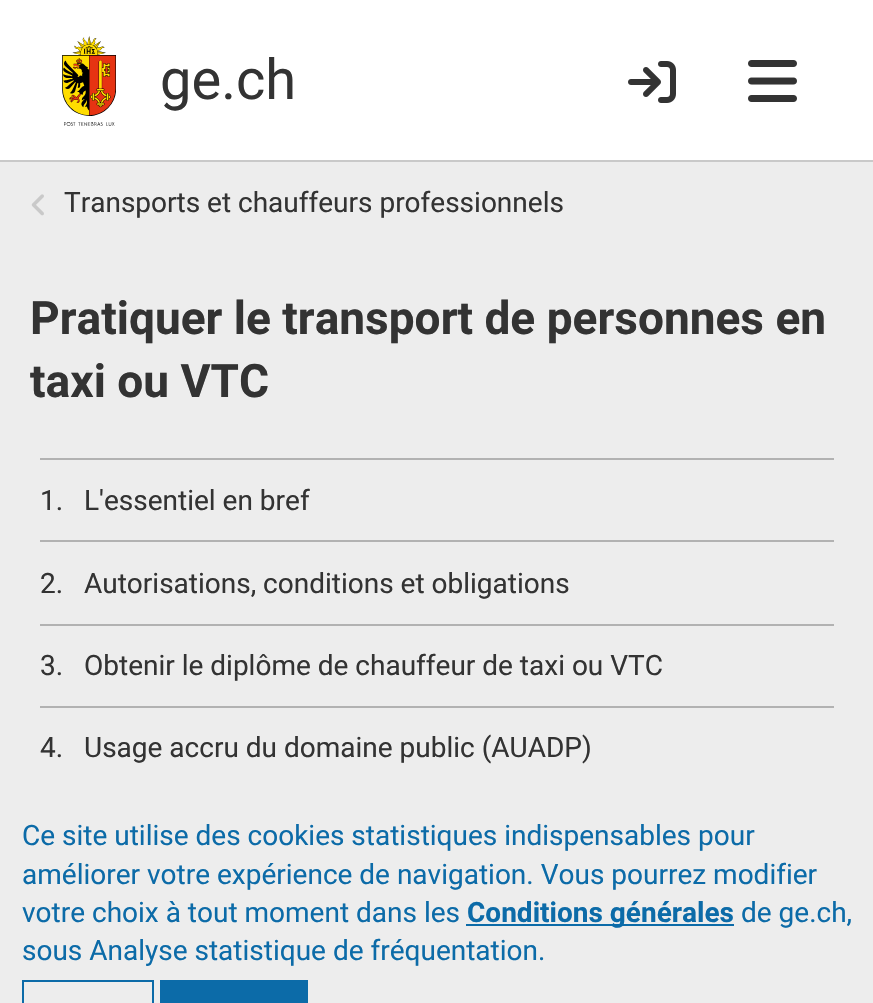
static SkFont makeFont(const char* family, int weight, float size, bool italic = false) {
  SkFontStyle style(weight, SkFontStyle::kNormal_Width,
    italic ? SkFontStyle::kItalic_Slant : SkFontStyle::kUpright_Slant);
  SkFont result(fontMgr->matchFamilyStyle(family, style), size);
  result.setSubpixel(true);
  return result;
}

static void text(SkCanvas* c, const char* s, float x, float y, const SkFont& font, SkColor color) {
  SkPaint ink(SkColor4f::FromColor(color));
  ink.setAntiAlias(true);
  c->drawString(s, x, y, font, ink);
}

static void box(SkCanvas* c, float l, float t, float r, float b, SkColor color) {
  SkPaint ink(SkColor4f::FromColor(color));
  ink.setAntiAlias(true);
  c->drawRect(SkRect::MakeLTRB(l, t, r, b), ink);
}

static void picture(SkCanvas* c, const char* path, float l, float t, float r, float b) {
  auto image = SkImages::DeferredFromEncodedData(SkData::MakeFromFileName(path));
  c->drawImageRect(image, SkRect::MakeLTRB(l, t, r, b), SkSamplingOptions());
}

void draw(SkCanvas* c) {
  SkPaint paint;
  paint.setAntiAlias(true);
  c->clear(0xffffffff);
  box(c, 0, 160, 873, 162, 0xffc9c9c9);
  picture(c, "img_01.png", 62, 36, 116, 126);
  SkFont face1 = makeFont("Roboto", 400, 56);
  text(c, "ge.ch", 160, 99, face1, 0xff333333);
  picture(c, "img_02.png", 628, 61, 676, 103);
  picture(c, "img_03.png", 748, 60, 797, 102);
  box(c, 0, 162, 873, 1003, 0xffededed);
  picture(c, "img_04.png", 31, 194, 44, 216);
  SkFont face2 = makeFont("Roboto", 400, 28);
  text(c, "Transports et chauffeurs professionnels", 64, 212, face2, 0xff333333);
  SkFont face3 = makeFont("Roboto", 700, 46);
  text(c, "Pratiquer le transport de personnes en", 30, 334, face3, 0xff333333);
  text(c, "taxi ou VTC", 30, 397, face3, 0xff333333);
  box(c, 40, 458, 834, 460, 0xffb2b2b2);
  text(c, "1.", 40, 510, face2, 0xff333333);
  text(c, "L'essentiel en bref", 84, 510, face2, 0xff333333);
  box(c, 40, 540, 834, 542, 0xffb2b2b2);
  text(c, "2.", 40, 593, face2, 0xff333333);
  text(c, "Autorisations, conditions et obligations", 84, 593, face2, 0xff333333);
  box(c, 40, 624, 834, 626, 0xffb2b2b2);
  text(c, "3.", 40, 675, face2, 0xff333333);
  text(c, "Obtenir le diplôme de chauffeur de taxi ou VTC", 84, 675, face2, 0xff333333);
  box(c, 40, 706, 834, 708, 0xffb2b2b2);
  text(c, "4.", 40, 757, face2, 0xff333333);
  text(c, "Usage accru du domaine public (AUADP)", 84, 757, face2, 0xff333333);
  text(c, "Ce site utilise des cookies statistiques indispensables pour", 22, 845, face2, 0xff0c6ba8);
  text(c, "améliorer votre expérience de navigation. Vous pourrez modifier", 22, 884, face2, 0xff0c6ba8);
  text(c, "votre choix à tout moment dans les", 22, 922, face2, 0xff0c6ba8);
  box(c, 466, 924, 734, 926, 0xff0c6ba8);
  SkFont face4 = makeFont("Roboto", 700, 28);
  text(c, "Conditions générales", 467, 922, face4, 0xff0c6ba8);
  text(c, "de ge.ch,", 741, 922, face2, 0xff0c6ba8);
  text(c, "sous Analyse statistique de fréquentation.", 22, 960, face2, 0xff0c6ba8);
  paint.setStyle(SkPaint::kStroke_Style);
  paint.setStrokeWidth(2);
  paint.setColor(0xff0c6ba8);
  c->drawRect(SkRect::MakeLTRB(23, 981, 153, 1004), paint);
  box(c, 160, 980, 308, 1003, 0xff0c6ba8);
}
